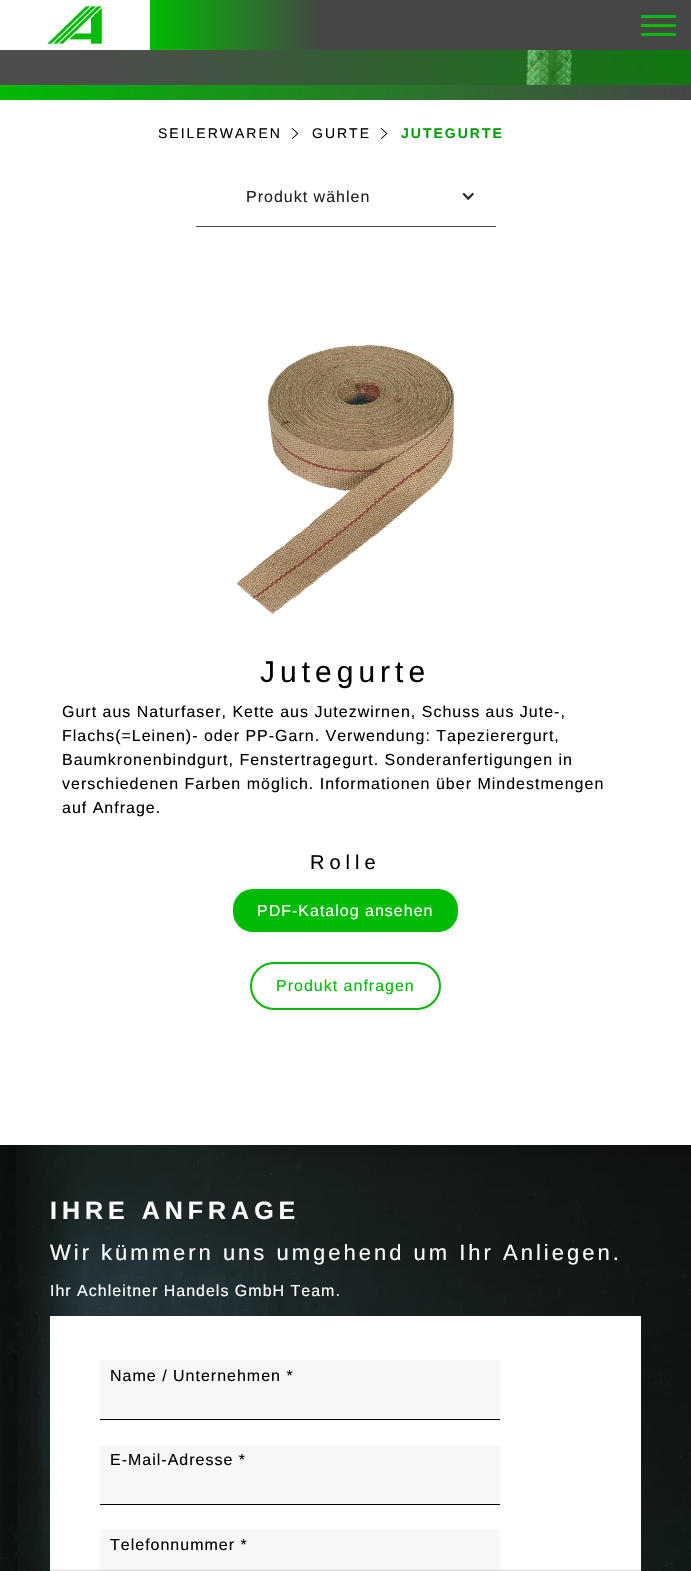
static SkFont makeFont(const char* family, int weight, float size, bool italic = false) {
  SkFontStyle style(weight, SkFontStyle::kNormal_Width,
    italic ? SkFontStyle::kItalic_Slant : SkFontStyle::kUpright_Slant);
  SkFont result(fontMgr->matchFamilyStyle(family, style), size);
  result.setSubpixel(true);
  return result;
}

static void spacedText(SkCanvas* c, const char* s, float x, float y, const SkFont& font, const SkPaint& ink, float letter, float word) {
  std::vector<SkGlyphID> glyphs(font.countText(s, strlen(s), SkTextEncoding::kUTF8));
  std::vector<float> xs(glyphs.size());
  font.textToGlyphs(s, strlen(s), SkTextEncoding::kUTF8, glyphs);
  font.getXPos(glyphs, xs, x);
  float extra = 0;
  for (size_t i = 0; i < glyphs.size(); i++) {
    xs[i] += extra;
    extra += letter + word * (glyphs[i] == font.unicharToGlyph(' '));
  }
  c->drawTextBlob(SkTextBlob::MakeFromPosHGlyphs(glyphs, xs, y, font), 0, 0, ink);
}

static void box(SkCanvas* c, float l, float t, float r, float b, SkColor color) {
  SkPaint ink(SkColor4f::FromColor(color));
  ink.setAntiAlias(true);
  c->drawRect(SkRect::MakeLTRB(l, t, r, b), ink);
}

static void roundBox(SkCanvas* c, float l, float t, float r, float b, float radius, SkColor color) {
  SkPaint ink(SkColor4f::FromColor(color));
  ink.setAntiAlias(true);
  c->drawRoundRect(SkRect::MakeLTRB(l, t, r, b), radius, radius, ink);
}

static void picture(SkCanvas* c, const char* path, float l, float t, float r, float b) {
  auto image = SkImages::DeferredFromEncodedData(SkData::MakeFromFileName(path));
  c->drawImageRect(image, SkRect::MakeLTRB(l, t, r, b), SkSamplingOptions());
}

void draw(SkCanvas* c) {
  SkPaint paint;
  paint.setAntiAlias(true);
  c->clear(0xffffffff);
  box(c, 641, 0, 691, 50, 0xff464646);
  picture(c, "img_01.png", 47, 6, 102, 44);
  {
    const SkColor colors[] = {0xff00bb03, 0xff464646};
    const float stops[] = {0, 0.35f};
    const SkPoint ends[] = {{150, 25}, {641, 25}};
    paint.setShader(SkGradientShader::MakeLinear(ends, colors, stops, 2, SkTileMode::kClamp));
    paint.setAlpha(255);
  }
  c->drawRect(SkRect::MakeLTRB(150, 0, 641, 50), paint);
  box(c, 641, 15, 676, 18, 0xff00bb03);
  box(c, 641, 24, 676, 27, 0xff00bb03);
  box(c, 641, 33, 676, 36, 0xff00bb03);
  picture(c, "img_02.png", 0, 50, 691, 85);
  {
    const SkColor colors[] = {0xff00bb03, 0xff464646};
    const float stops[] = {0, 1};
    const SkPoint ends[] = {{0, 93}, {691, 93}};
    paint.setShader(SkGradientShader::MakeLinear(ends, colors, stops, 2, SkTileMode::kClamp));
    paint.setAlpha(255);
  }
  c->drawRect(SkRect::MakeLTRB(0, 85, 691, 100), paint);
  SkFont face1 = makeFont("Liberation Sans", 400, 14);
  paint.setShader(nullptr);
  paint.setColor(0xff000000);
  spacedText(c, "SEILERWAREN", 158, 138, face1, paint, 2, 0);
  picture(c, "img_03.png", 291, 128, 299, 139);
  spacedText(c, "GURTE", 312, 138, face1, paint, 2, 0);
  picture(c, "img_03.png", 380, 128, 388, 139);
  SkFont face2 = makeFont("Liberation Sans", 700, 14);
  paint.setColor(0xff01a004);
  spacedText(c, "JUTEGURTE", 401, 138, face2, paint, 2, 0);
  box(c, 196, 226, 496, 227, 0xff464646);
  SkFont face3 = makeFont("Liberation Sans", 400, 16);
  paint.setColor(0xff222222);
  spacedText(c, "Produkt wählen", 246, 202, face3, paint, 1, 0);
  picture(c, "img_04.png", 462, 192, 474, 201);
  picture(c, "img_05.png", 236, 345, 455, 615);
  SkFont face4 = makeFont("Liberation Sans", 400, 30);
  paint.setColor(0xff000000);
  spacedText(c, "Jutegurte", 260, 682, face4, paint, 5, 0);
  spacedText(c, "Gurt aus Naturfaser, Kette aus Jutezwirnen, Schuss aus Jute-,", 62, 717, face3, paint, 1, 0);
  spacedText(c, "Flachs(=Leinen)- oder PP-Garn. Verwendung: Tapezierergurt,", 62, 741, face3, paint, 1, 0);
  spacedText(c, "Baumkronenbindgurt, Fenstertragegurt. Sonderanfertigungen in", 62, 765, face3, paint, 1, 0);
  spacedText(c, "verschiedenen Farben möglich. Informationen über Mindestmengen", 62, 789, face3, paint, 1, 0);
  spacedText(c, "auf Anfrage.", 62, 813, face3, paint, 1, 0);
  SkFont face5 = makeFont("Liberation Sans", 400, 20);
  spacedText(c, "Rolle", 310, 869, face5, paint, 5, 0);
  roundBox(c, 233, 889, 458, 932, 20, 0xff00bb03);
  paint.setColor(0xffffffff);
  spacedText(c, "PDF-Katalog ansehen", 257, 916, face3, paint, 1, 0);
  paint.setStyle(SkPaint::kStroke_Style);
  paint.setStrokeWidth(2);
  paint.setColor(0xff00bb03);
  c->drawRoundRect(SkRect::MakeLTRB(251, 963, 440, 1009), 23, 23, paint);
  paint.setStyle(SkPaint::kFill_Style);
  spacedText(c, "Produkt anfragen", 276, 991, face3, paint, 1, 0);
  picture(c, "img_06.png", 0, 1145, 691, 1571);
  SkFont face6 = makeFont("Liberation Sans", 700, 25);
  paint.setColor(0xffffffff);
  spacedText(c, "IHRE ANFRAGE", 50, 1219, face6, paint, 5, 0);
  SkFont face7 = makeFont("Liberation Sans", 400, 22);
  spacedText(c, "Wir kümmern uns umgehend um Ihr Anliegen.", 50, 1260, face7, paint, 3, 0);
  spacedText(c, "Ihr Achleitner Handels GmbH Team.", 50, 1296, face3, paint, 1, 0);
  box(c, 50, 1316, 641, 1571, 0xffffffff);
  box(c, 100, 1360, 500, 1419, 0xfff7f7f7);
  box(c, 100, 1419, 500, 1420, 0xff000000);
  paint.setColor(0xff000000);
  spacedText(c, "Name / Unternehmen *", 110, 1381, face3, paint, 1, 0);
  box(c, 100, 1445, 500, 1504, 0xfff7f7f7);
  box(c, 100, 1504, 500, 1505, 0xff000000);
  spacedText(c, "E-Mail-Adresse *", 110, 1465, face3, paint, 1, 0);
  box(c, 100, 1529, 500, 1571, 0xfff7f7f7);
  spacedText(c, "Telefonnummer *", 110, 1550, face3, paint, 1, 0);
  paint.setMaskFilter(SkMaskFilter::MakeBlur(kNormal_SkBlurStyle, 1.5f));
  c->drawRect(SkRect::MakeLTRB(1, 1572, 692, 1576), paint);
  paint.setMaskFilter(nullptr);
}
